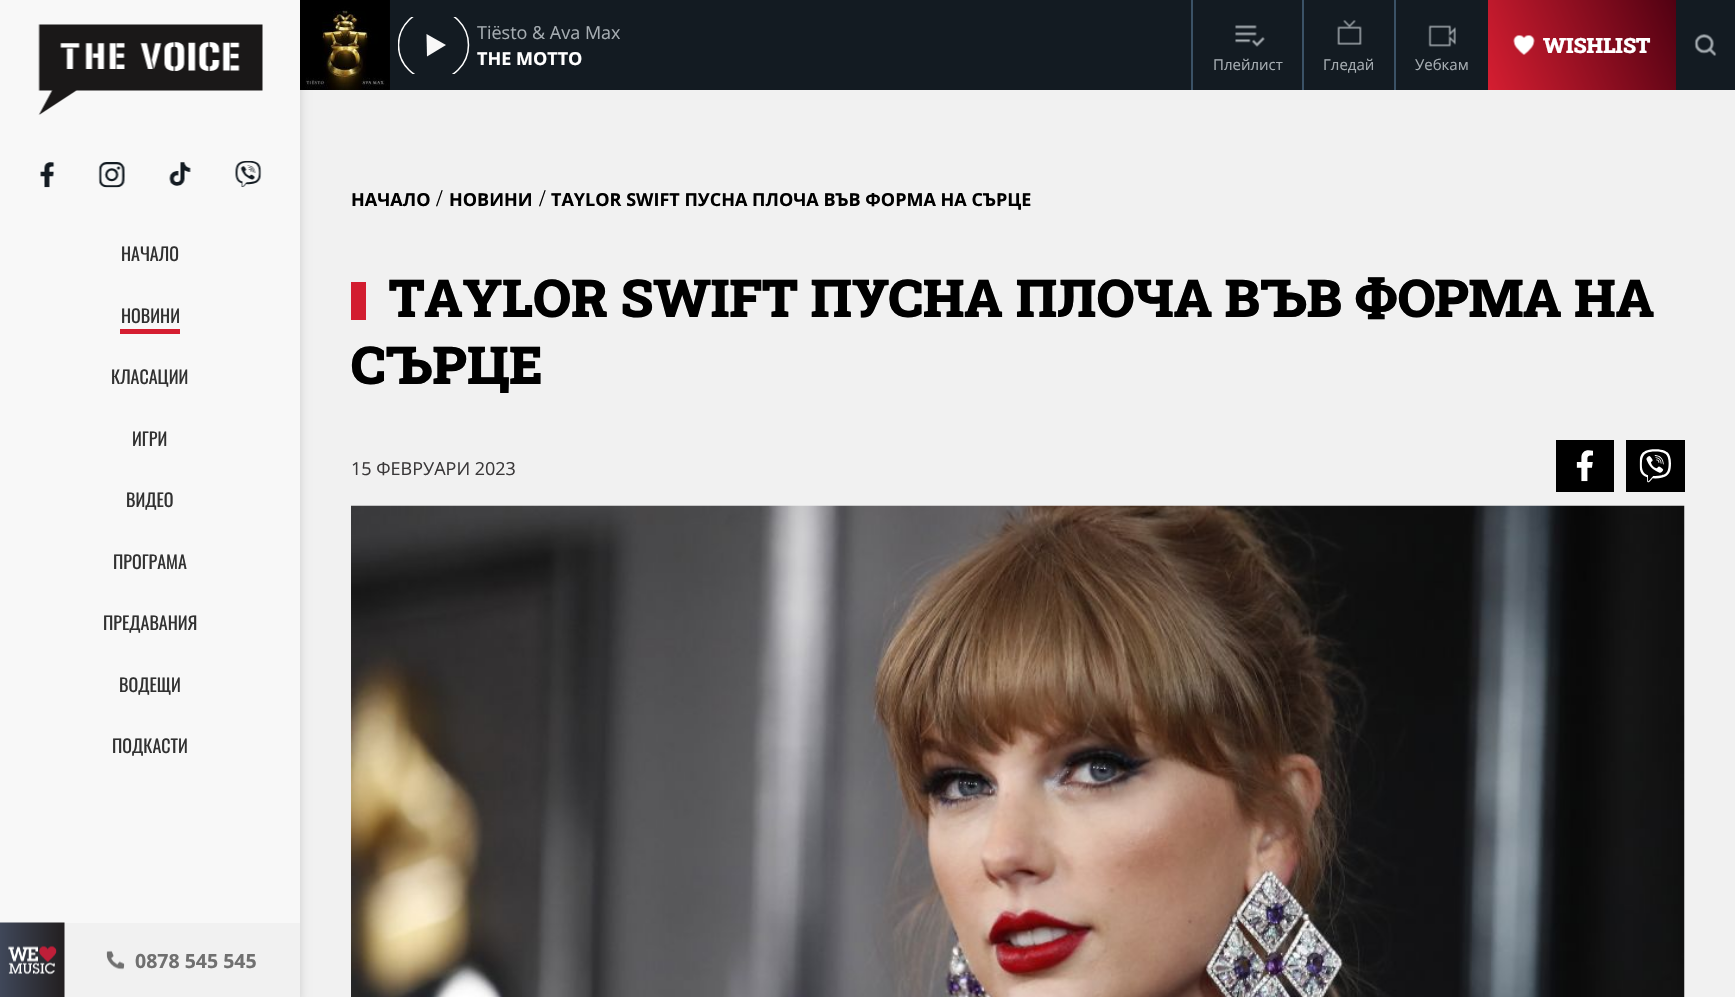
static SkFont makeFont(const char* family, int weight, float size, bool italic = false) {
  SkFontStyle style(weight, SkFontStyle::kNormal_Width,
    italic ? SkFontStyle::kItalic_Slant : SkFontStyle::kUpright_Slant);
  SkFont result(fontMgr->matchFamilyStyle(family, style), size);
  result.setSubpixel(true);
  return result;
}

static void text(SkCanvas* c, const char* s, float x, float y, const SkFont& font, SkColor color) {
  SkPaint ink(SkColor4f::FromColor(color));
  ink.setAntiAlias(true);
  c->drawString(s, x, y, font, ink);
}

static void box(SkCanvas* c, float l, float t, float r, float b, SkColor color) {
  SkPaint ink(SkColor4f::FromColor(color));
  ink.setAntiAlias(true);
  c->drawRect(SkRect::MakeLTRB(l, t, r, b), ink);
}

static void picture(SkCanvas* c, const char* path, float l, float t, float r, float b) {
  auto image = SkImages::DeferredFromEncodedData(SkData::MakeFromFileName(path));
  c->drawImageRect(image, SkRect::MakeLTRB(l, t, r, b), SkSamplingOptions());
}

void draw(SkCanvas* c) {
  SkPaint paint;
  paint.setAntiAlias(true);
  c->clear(0xfff1f1f1);
  picture(c, "img_08.png", 300, 0, 390, 90);
  paint.setColor(0x29000000);
  paint.setMaskFilter(SkMaskFilter::MakeBlur(kNormal_SkBlurStyle, 4.5f));
  c->drawRect(SkRect::MakeLTRB(0, 5, 300, 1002), paint);
  paint.setMaskFilter(nullptr);
  box(c, 0, 0, 300, 923, 0xfff8f8f8);
  picture(c, "img_01.png", 38, 24, 263, 115);
  picture(c, "img_02.png", 40, 162, 55, 188);
  picture(c, "img_03.png", 98, 162, 125, 188);
  picture(c, "img_04.png", 169, 162, 191, 186);
  picture(c, "img_05.png", 235, 160, 262, 187);
  SkFont face1 = makeFont("Oswald", 400, 18);
  text(c, "НАЧАЛО", 121, 261, face1, 0xff313131);
  box(c, 120, 329, 180, 334, 0xffd51e31);
  text(c, "НОВИНИ", 121, 323, face1, 0xff313131);
  text(c, "КЛАСАЦИИ", 111, 384, face1, 0xff313131);
  text(c, "ИГРИ", 132, 446, face1, 0xff313131);
  text(c, "ВИДЕО", 126, 507, face1, 0xff313131);
  text(c, "ПРОГРАМА", 113, 569, face1, 0xff313131);
  text(c, "ПРЕДАВАНИЯ", 103, 630, face1, 0xff313131);
  text(c, "ВОДЕЩИ", 119, 692, face1, 0xff313131);
  text(c, "ПОДКАСТИ", 112, 753, face1, 0xff313131);
  box(c, 64, 923, 300, 997, 0xfff1f1f1);
  picture(c, "img_06.png", 0, 922, 65, 997);
  picture(c, "img_07.png", 106, 950, 125, 970);
  SkFont face2 = makeFont("Open Sans", 700, 19.5f);
  text(c, "0878 545 545", 135, 968, face2, 0xff707070);
  box(c, 390, 0, 1735, 90, 0xff131b22);
  c->save();
  c->clipRect(SkRect::MakeLTRB(398, 17, 470, 74));
  paint.setStyle(SkPaint::kStroke_Style);
  paint.setStrokeWidth(1.5f);
  paint.setColor(0xffffffff);
  c->drawCircle(433.5f, 45, 35, paint);
  c->restore();
  paint.setStyle(SkPaint::kFill_Style);
  paint.setColor(0xfff8f8f8);
  c->drawPath(SkPathBuilder().moveTo(426.5f, 34).lineTo(427, 56.5f).lineTo(446, 45).close().detach(), paint);
  SkFont face3 = makeFont("Open Sans", 400, 18);
  text(c, "Tiësto & Ava Max", 477, 39, face3, 0xffa5acb1);
  SkFont face4 = makeFont("Open Sans", 700, 18);
  text(c, "THE MOTTO", 477, 65, face4, 0xffffffff);
  {
    const SkColor colors[] = {0xffd51e31, 0xff510112};
    const float stops[] = {0, 1};
    const SkPoint ends[] = {{1486, 84}, {1678, 6.1f}};
    paint.setShader(SkGradientShader::MakeLinear(ends, colors, stops, 2, SkTileMode::kClamp));
    paint.setAlpha(255);
  }
  c->drawRect(SkRect::MakeLTRB(1488, 0, 1676, 90), paint);
  picture(c, "img_09.png", 1513, 35, 1535, 55);
  SkFont face5 = makeFont("Roboto Slab", 900, 21);
  text(c, "WISHLIST", 1543, 53, face5, 0xffffffff);
  picture(c, "img_10.png", 1694, 34, 1717, 56);
  box(c, 1191, 0, 1193, 90, 0xff3b5266);
  picture(c, "img_11.png", 1235, 25, 1265, 47);
  SkFont face6 = makeFont("Open Sans", 400, 15);
  text(c, "Плейлист", 1213, 70, face6, 0xffa5acb1);
  box(c, 1302, 0, 1304, 90, 0xff3b5266);
  picture(c, "img_12.png", 1337, 20, 1362, 45);
  text(c, "Гледай", 1323, 70, face6, 0xffa5acb1);
  box(c, 1394, 0, 1396, 90, 0xff3b5266);
  picture(c, "img_13.png", 1428, 25, 1456, 47);
  text(c, "Уебкам", 1415, 70, face6, 0xffa5acb1);
  text(c, "НАЧАЛО", 351, 206, face4, 0xff000000);
  SkFont face7 = makeFont("Liberation Serif", 400, 24);
  text(c, "/", 436, 206, face7, 0xff000000);
  text(c, "НОВИНИ", 449, 206, face4, 0xff000000);
  text(c, "/", 539, 206, face7, 0xff000000);
  text(c, "TAYLOR SWIFT ПУСНА ПЛОЧА ВЪВ ФОРМА НА СЪРЦЕ", 551, 206, face4, 0xff000000);
  box(c, 351, 282, 366, 320, 0xffd21d30);
  SkFont face8 = makeFont("Roboto Slab", 900, 52.5f);
  text(c, "TAYLOR SWIFT ПУСНА ПЛОЧА ВЪВ ФОРМА НА", 389, 317, face8, 0xff000000);
  text(c, "СЪРЦЕ", 351, 384, face8, 0xff000000);
  text(c, "15 ФЕВРУАРИ 2023", 351, 475, face3, 0xff3b393a);
  box(c, 1556, 440, 1614, 492, 0xff000000);
  picture(c, "img_14.png", 1576, 450, 1593, 482);
  box(c, 1626, 440, 1685, 492, 0xff000000);
  picture(c, "img_15.png", 1639, 449, 1671, 483);
  picture(c, "img_16.png", 351, 505, 1685, 997);
}
